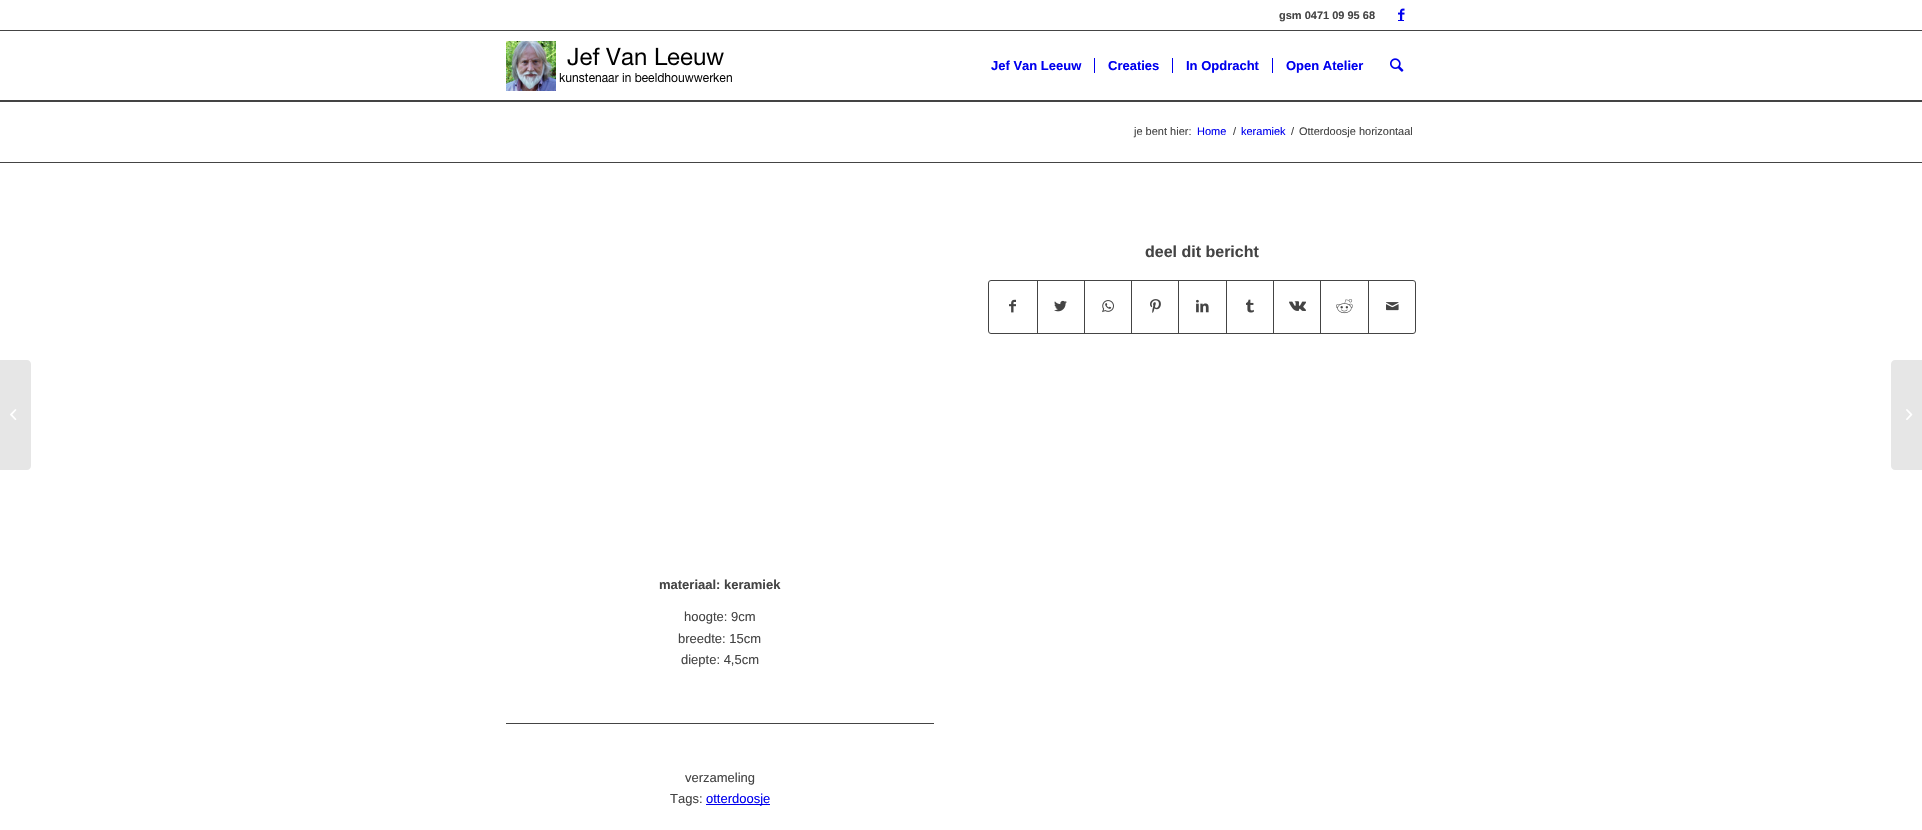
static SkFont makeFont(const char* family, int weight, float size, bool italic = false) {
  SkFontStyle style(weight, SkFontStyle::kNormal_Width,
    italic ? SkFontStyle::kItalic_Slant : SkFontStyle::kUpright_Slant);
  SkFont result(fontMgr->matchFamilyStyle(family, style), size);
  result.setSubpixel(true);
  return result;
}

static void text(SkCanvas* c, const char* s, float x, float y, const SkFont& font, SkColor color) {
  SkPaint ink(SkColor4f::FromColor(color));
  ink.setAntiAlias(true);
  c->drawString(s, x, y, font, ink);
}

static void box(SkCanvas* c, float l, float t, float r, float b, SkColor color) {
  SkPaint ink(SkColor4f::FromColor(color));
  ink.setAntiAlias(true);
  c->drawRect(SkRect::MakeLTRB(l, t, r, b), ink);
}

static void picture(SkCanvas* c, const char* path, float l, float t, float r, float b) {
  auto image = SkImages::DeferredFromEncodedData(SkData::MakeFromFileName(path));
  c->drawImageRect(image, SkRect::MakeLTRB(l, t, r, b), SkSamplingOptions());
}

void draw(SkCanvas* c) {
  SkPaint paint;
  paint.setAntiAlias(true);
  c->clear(0xffffffff);
  SkFont face1 = makeFont("Liberation Sans", 700, 11);
  text(c, "gsm 0471 09 95 68", 1279, 19, face1, 0xff444444);
  picture(c, "img_01.png", 1398, 8, 1405, 20);
  box(c, 1398, 20, 1404, 21, 0xff0000ee);
  box(c, 0, 30, 1922, 31, 0xff444444);
  picture(c, "img_02.png", 506, 41, 732, 91);
  SkFont face2 = makeFont("Liberation Sans", 700, 13);
  text(c, "Jef Van Leeuw", 991, 70, face2, 0xff0000ee);
  text(c, "Creaties", 1108, 70, face2, 0xff0000ee);
  box(c, 1094, 58, 1095, 73, 0xff0000ee);
  text(c, "In Opdracht", 1186, 70, face2, 0xff0000ee);
  box(c, 1172, 58, 1173, 73, 0xff0000ee);
  text(c, "Open Atelier", 1286, 70, face2, 0xff0000ee);
  box(c, 1272, 58, 1273, 73, 0xff0000ee);
  picture(c, "img_03.png", 1390, 58, 1404, 72);
  paint.setColor(0xffe6e6e6);
  c->drawPath(SkPathBuilder().moveTo(0, 360).lineTo(27, 360).cubicTo(29, 360, 31, 362, 31, 364).lineTo(31, 466).cubicTo(31, 468, 29, 470, 27, 470).lineTo(0, 470).close().detach(), paint);
  picture(c, "img_04.png", 10, 409, 17, 420);
  box(c, 0, 100, 1922, 102, 0xff444444);
  SkFont face3 = makeFont("Liberation Sans", 400, 11);
  text(c, "je bent hier:", 1134, 135, face3, 0xff444444);
  text(c, "Home", 1197, 135, face3, 0xff0000ee);
  text(c, "/", 1233, 135, face3, 0xff444444);
  text(c, "keramiek", 1241, 135, face3, 0xff0000ee);
  text(c, "/", 1291, 135, face3, 0xff444444);
  text(c, "Otterdoosje horizontaal", 1299, 135, face3, 0xff444444);
  box(c, 0, 162, 1922, 163, 0xff444444);
  SkFont face4 = makeFont("Liberation Sans", 700, 16);
  text(c, "deel dit bericht", 1145, 257, face4, 0xff444444);
  paint.setStyle(SkPaint::kStroke_Style);
  paint.setStrokeWidth(1);
  paint.setColor(0xff444444);
  c->drawRoundRect(SkRect::MakeLTRB(988.5f, 280.5f, 1415.5f, 333.5f), 2.5f, 2.5f, paint);
  picture(c, "img_05.png", 1009, 299, 1016, 313);
  box(c, 1037, 281, 1038, 333, 0xff444444);
  picture(c, "img_06.png", 1054, 300, 1067, 312);
  box(c, 1084, 281, 1085, 333, 0xff444444);
  picture(c, "img_07.png", 1102, 300, 1114, 313);
  box(c, 1131, 281, 1132, 333, 0xff444444);
  picture(c, "img_08.png", 1150, 299, 1161, 313);
  box(c, 1178, 281, 1179, 333, 0xff444444);
  picture(c, "img_09.png", 1196, 299, 1209, 313);
  box(c, 1226, 281, 1227, 333, 0xff444444);
  picture(c, "img_10.png", 1246, 299, 1254, 313);
  box(c, 1273, 281, 1274, 333, 0xff444444);
  picture(c, "img_11.png", 1289, 301, 1306, 311);
  box(c, 1320, 281, 1321, 333, 0xff444444);
  picture(c, "img_12.png", 1336, 299, 1353, 314);
  box(c, 1368, 281, 1369, 333, 0xff444444);
  picture(c, "img_13.png", 1386, 302, 1399, 311);
  text(c, "materiaal: keramiek", 659, 589, face2, 0xff444444);
  SkFont face5 = makeFont("Liberation Sans", 400, 13);
  text(c, "hoogte: 9cm", 684, 621, face5, 0xff444444);
  text(c, "breedte: 15cm", 678, 643, face5, 0xff444444);
  text(c, "diepte: 4,5cm", 681, 664, face5, 0xff444444);
  box(c, 506, 723, 934, 724, 0xff444444);
  text(c, "verzameling", 685, 782, face5, 0xff444444);
  text(c, "Tags:", 670, 803, face5, 0xff444444);
  box(c, 706, 804, 770, 805, 0xff0000ee);
  text(c, "otterdoosje", 706, 803, face5, 0xff0000ee);
  paint.setStyle(SkPaint::kFill_Style);
  paint.setColor(0xffe6e6e6);
  c->drawPath(SkPathBuilder().moveTo(1895, 360).lineTo(1922, 360).lineTo(1922, 470).lineTo(1895, 470).cubicTo(1893, 470, 1891, 468, 1891, 466).lineTo(1891, 364).cubicTo(1891, 362, 1893, 360, 1895, 360).close().detach(), paint);
  picture(c, "img_14.png", 1906, 409, 1913, 420);
}
